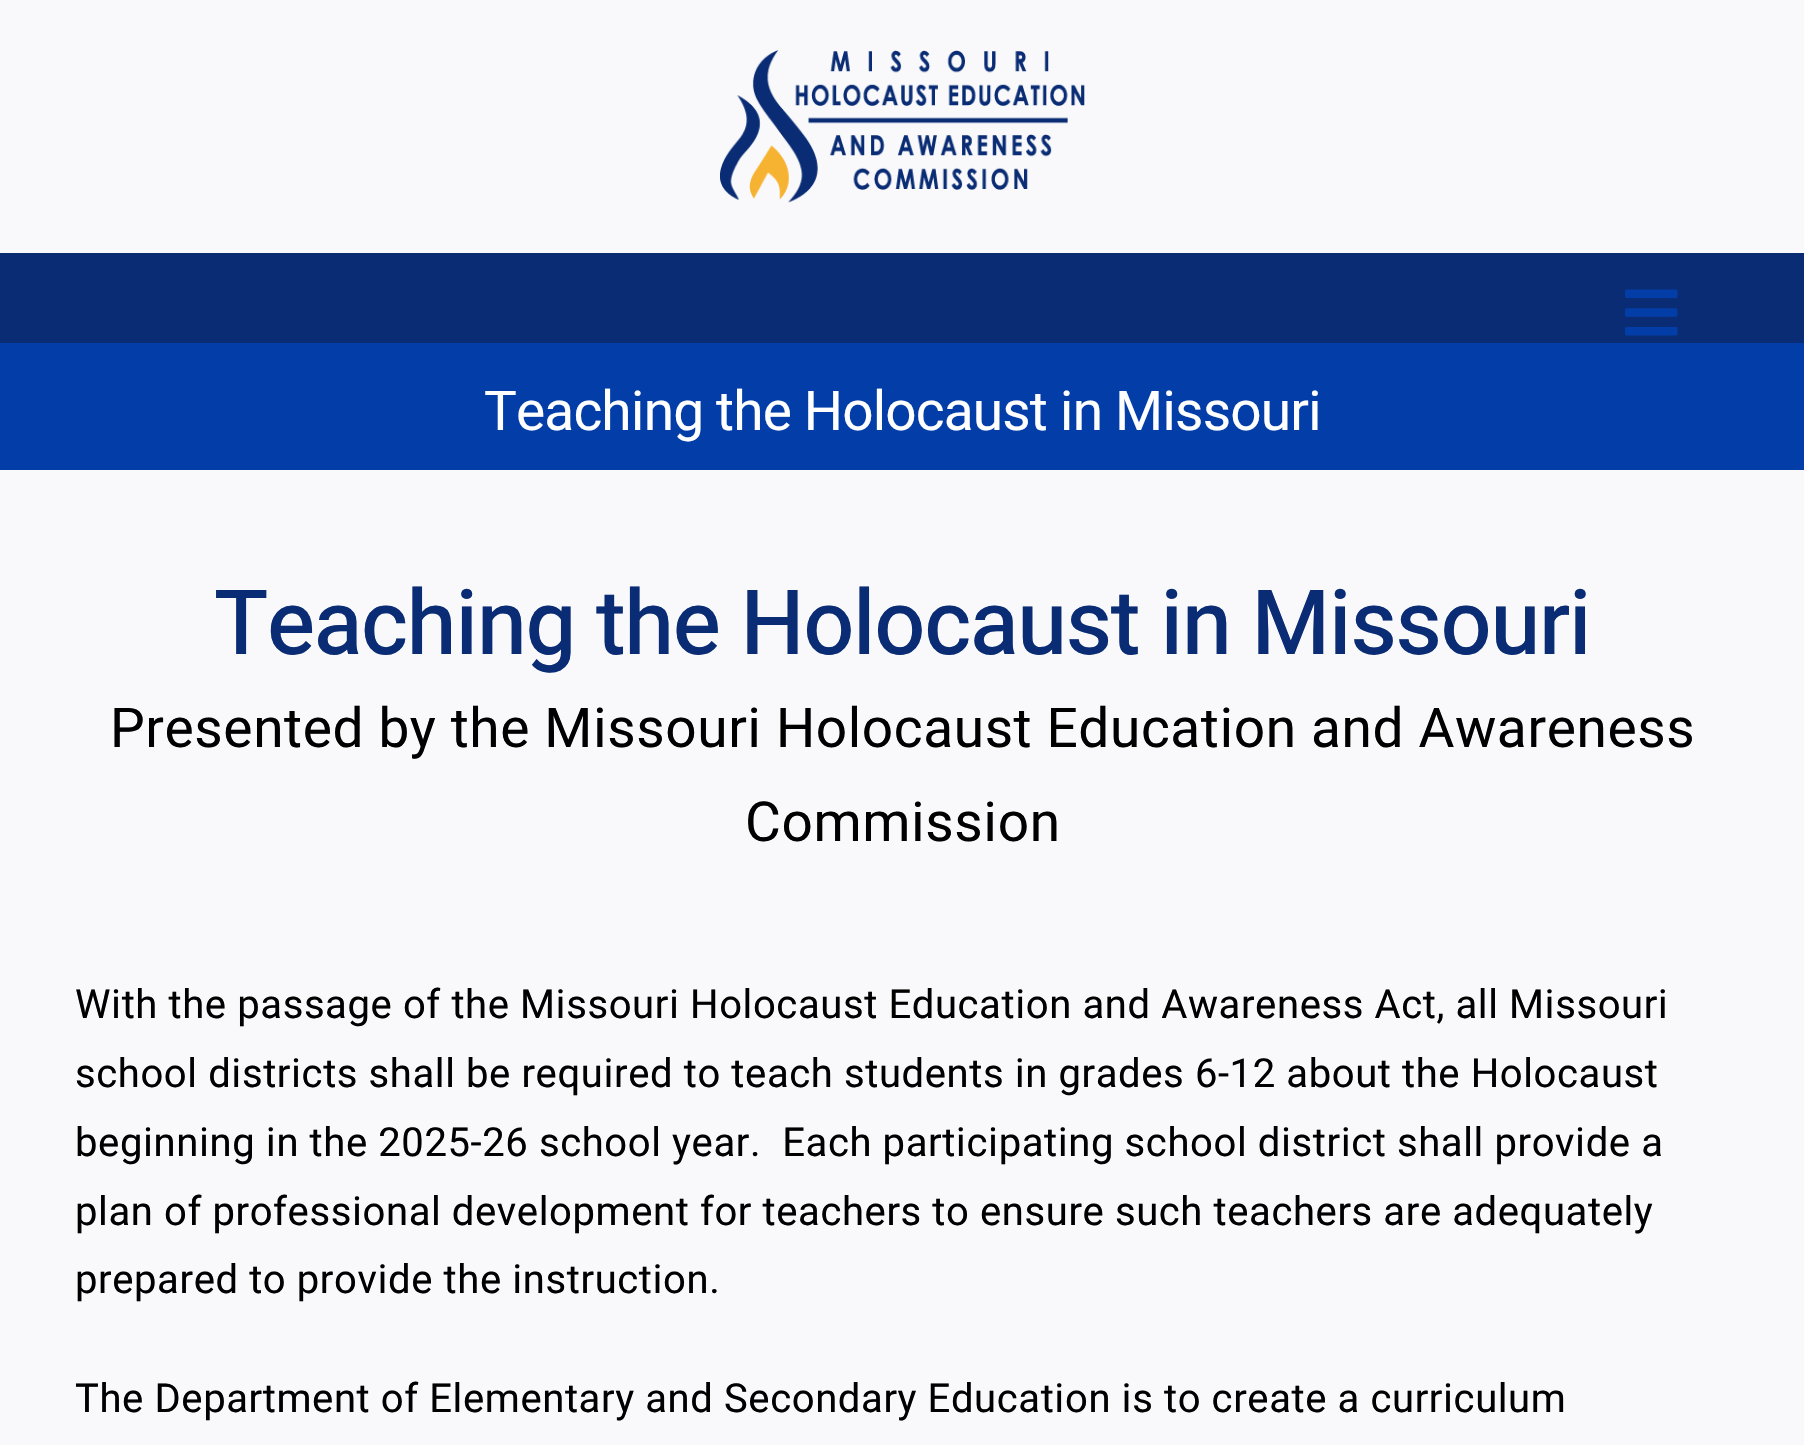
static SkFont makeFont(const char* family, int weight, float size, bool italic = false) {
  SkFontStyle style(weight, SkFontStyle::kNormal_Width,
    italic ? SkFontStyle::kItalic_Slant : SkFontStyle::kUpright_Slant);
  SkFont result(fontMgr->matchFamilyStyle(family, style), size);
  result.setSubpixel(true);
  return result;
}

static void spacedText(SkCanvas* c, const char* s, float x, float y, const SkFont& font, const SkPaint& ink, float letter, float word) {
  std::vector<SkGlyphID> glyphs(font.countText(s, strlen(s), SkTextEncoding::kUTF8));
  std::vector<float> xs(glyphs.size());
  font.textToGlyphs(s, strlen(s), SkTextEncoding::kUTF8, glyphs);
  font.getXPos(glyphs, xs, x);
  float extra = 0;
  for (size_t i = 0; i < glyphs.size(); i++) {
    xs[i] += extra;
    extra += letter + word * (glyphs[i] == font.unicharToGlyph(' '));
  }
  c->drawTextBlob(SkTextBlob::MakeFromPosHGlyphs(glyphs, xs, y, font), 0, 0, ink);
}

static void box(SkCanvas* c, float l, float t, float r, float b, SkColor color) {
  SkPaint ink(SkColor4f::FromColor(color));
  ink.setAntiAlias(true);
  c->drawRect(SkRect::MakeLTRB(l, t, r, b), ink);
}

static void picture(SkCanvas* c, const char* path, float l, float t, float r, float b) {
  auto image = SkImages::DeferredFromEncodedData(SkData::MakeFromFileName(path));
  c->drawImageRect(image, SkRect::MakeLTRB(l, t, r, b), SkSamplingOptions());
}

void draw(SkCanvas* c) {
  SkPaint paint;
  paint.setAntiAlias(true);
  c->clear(0xfff9f9fb);
  picture(c, "img_01.png", 720, 50, 1085, 203);
  box(c, 0, 253, 1804, 343, 0xff0a2c74);
  picture(c, "img_02.png", 1625, 289, 1678, 336);
  box(c, 0, 343, 1804, 470, 0xff033da8);
  SkFont face1 = makeFont("Heebo", 400, 55);
  paint.setColor(0xffffffff);
  spacedText(c, "Teaching the Holocaust in Missouri", 484, 430, face1, paint, -0.85f, 0);
  SkFont face2 = makeFont("Heebo", 500, 90);
  paint.setColor(0xff0a2c74);
  spacedText(c, "Teaching the Holocaust in Missouri", 214, 654, face2, paint, -1.35f, 0);
  paint.setColor(0xff000000);
  spacedText(c, "Presented by the Missouri Holocaust Education and Awareness", 110, 747, face1, paint, 0.6f, 0);
  spacedText(c, "Commission", 745, 841, face1, paint, 0.6f, 0);
  SkFont face3 = makeFont("Heebo", 400, 40);
  spacedText(c, "With the passage of the Missouri Holocaust Education and Awareness Act, all Missouri", 75, 1018, face3, paint, 0.6f, 0);
  spacedText(c, "school districts shall be required to teach students in grades 6-12 about the Holocaust", 75, 1087, face3, paint, 0.6f, 0);
  spacedText(c, "beginning in the 2025-26 school year.  Each participating school district shall provide a", 75, 1156, face3, paint, 0.6f, 0);
  spacedText(c, "plan of professional development for teachers to ensure such teachers are adequately", 75, 1225, face3, paint, 0.6f, 0);
  spacedText(c, "prepared to provide the instruction.", 75, 1293, face3, paint, 0.6f, 0);
  spacedText(c, "The Department of Elementary and Secondary Education is to create a curriculum", 75, 1412, face3, paint, 0.6f, 0);
}
